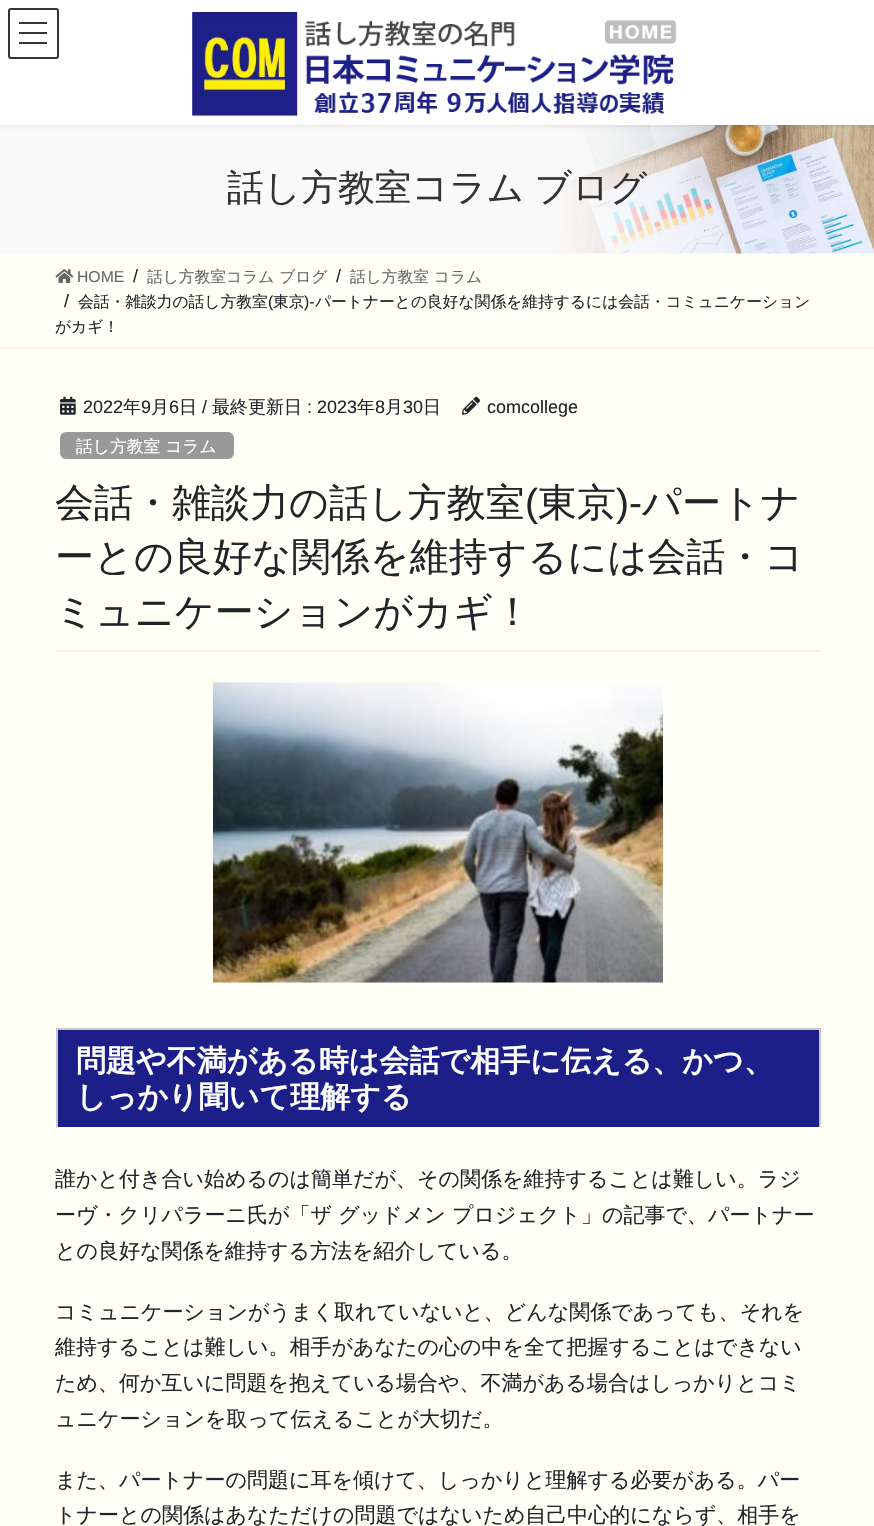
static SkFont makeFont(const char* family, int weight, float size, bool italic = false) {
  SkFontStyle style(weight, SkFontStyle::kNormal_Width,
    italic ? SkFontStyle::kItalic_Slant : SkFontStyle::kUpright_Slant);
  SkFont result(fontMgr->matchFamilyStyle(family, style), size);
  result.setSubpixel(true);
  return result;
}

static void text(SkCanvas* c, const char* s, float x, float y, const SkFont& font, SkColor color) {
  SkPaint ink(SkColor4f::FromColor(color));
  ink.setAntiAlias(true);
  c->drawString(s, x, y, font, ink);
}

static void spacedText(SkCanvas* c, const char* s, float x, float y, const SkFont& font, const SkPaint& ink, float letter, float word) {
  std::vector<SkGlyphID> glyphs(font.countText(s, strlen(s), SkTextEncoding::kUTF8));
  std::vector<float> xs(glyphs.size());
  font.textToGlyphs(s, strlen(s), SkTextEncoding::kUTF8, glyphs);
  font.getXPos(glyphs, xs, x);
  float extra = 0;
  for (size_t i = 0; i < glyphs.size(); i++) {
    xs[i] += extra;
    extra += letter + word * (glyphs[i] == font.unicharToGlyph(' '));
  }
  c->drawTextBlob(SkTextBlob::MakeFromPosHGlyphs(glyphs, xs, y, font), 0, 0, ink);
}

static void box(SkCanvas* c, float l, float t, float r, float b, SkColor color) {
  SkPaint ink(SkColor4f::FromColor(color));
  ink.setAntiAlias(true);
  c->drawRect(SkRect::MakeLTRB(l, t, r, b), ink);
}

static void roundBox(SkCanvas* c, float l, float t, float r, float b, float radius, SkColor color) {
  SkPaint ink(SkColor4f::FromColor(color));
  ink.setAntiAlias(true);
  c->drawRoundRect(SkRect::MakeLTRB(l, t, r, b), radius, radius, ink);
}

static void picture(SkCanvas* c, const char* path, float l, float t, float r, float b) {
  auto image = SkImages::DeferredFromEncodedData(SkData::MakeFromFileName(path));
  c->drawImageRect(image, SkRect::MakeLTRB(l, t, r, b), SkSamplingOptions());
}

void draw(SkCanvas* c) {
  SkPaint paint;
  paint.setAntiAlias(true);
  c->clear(0xfffffff6);
  picture(c, "img_02.png", 0, 125, 874, 254);
  paint.setColor(0x1a000000);
  paint.setMaskFilter(SkMaskFilter::MakeBlur(kNormal_SkBlurStyle, 2));
  c->drawRect(SkRect::MakeLTRB(0, 2, 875, 126), paint);
  paint.setMaskFilter(nullptr);
  box(c, 0, 0, 874, 125, 0xffffffff);
  picture(c, "img_01.png", 192, 12, 677, 117);
  box(c, 19, 22, 47, 24, 0xff333333);
  box(c, 19, 32, 47, 34, 0xff333333);
  box(c, 19, 42, 47, 44, 0xff333333);
  paint.setStyle(SkPaint::kStroke_Style);
  paint.setStrokeWidth(2);
  paint.setColor(0xff333333);
  c->drawRoundRect(SkRect::MakeLTRB(9, 9, 58, 58), 2, 2, paint);
  SkFont face1 = makeFont("WenQuanYi Zen Hei", 500, 36.75f);
  paint.setStyle(SkPaint::kFill_Style);
  spacedText(c, "話し方教室コラム ブログ", 227, 200, face1, paint, 0, -1);
  box(c, 0, 347, 874, 349, 0xfff2f2ea);
  picture(c, "img_03.png", 55, 269, 74, 283);
  SkFont face2 = makeFont("Liberation Sans", 400, 15.75f);
  text(c, "HOME", 77, 282, face2, 0xff666666);
  SkFont face3 = makeFont("Liberation Sans", 400, 18);
  text(c, "/", 133, 282, face3, 0xff212529);
  SkFont face4 = makeFont("WenQuanYi Zen Hei", 500, 15.75f);
  text(c, "話し方教室コラム ブログ", 147, 282, face4, 0xff666666);
  text(c, "/", 336, 282, face3, 0xff212529);
  text(c, "話し方教室 コラム", 350, 282, face4, 0xff666666);
  text(c, "/", 64, 307, face3, 0xff212529);
  text(c, "会話・雑談力の話し方教室", 78, 307, face4, 0xff212529);
  text(c, "(", 268, 307, face2, 0xff212529);
  text(c, "東京", 273, 307, face4, 0xff212529);
  text(c, ")-", 304, 307, face2, 0xff212529);
  text(c, "パートナーとの良好な関係を維持するには会話・コミュニケーション", 315, 307, face4, 0xff212529);
  text(c, "がカギ！", 55, 332, face4, 0xff212529);
  box(c, 56, 650, 821, 652, 0xfff2f2ea);
  picture(c, "img_04.png", 60, 396, 76, 415);
  text(c, "2022", 83, 413, face3, 0xff212529);
  SkFont face5 = makeFont("WenQuanYi Zen Hei", 500, 18);
  text(c, "年", 123, 413, face5, 0xff212529);
  text(c, "9", 141, 413, face3, 0xff212529);
  text(c, "月", 151, 413, face5, 0xff212529);
  text(c, "6", 169, 413, face3, 0xff212529);
  text(c, "日", 179, 413, face5, 0xff212529);
  text(c, "/", 202, 413, face3, 0xff212529);
  text(c, "最終更新日", 212, 413, face5, 0xff212529);
  text(c, ": 2023", 307, 413, face3, 0xff212529);
  text(c, "年", 357, 413, face5, 0xff212529);
  text(c, "8", 375, 413, face3, 0xff212529);
  text(c, "月", 385, 413, face5, 0xff212529);
  text(c, "30", 403, 413, face3, 0xff212529);
  text(c, "日", 423, 413, face5, 0xff212529);
  picture(c, "img_05.png", 462, 396, 480, 415);
  text(c, "comcollege", 487, 413, face3, 0xff212529);
  roundBox(c, 60, 432, 234, 459, 6, 0xff999999);
  SkFont face6 = makeFont("WenQuanYi Zen Hei", 500, 16.75f);
  text(c, "話し方教室 コラム", 76, 452, face6, 0xffffffff);
  SkFont face7 = makeFont("WenQuanYi Zen Hei", 500, 39);
  text(c, "会話・雑談力の話し方教室", 55, 516, face7, 0xff212529);
  SkFont face8 = makeFont("Liberation Sans", 400, 39);
  text(c, "(", 525, 516, face8, 0xff212529);
  text(c, "東京", 538, 516, face7, 0xff212529);
  text(c, ")-", 616, 516, face8, 0xff212529);
  text(c, "パートナ", 642, 516, face7, 0xff212529);
  text(c, "ーとの良好な関係を維持するには会話・コ", 55, 570, face7, 0xff212529);
  text(c, "ミュニケーションがカギ！", 55, 625, face7, 0xff212529);
  picture(c, "img_06.png", 213, 682, 663, 983);
  box(c, 58, 1030, 819, 1127, 0xff1d1f89);
  box(c, 56, 1028, 821, 1030, 0xffc8c8c8);
  box(c, 819, 1028, 821, 1127, 0xffc8c8c8);
  box(c, 56, 1028, 58, 1127, 0xffc8c8c8);
  SkFont face9 = makeFont("WenQuanYi Zen Hei", 700, 30);
  text(c, "問題や不満がある時は会話で相手に伝える、かつ、", 76, 1071, face9, 0xffffffff);
  text(c, "しっかり聞いて理解する", 76, 1107, face9, 0xffffffff);
  SkFont face10 = makeFont("WenQuanYi Zen Hei", 500, 21);
  text(c, "誰かと付き合い始めるのは簡単だが、その関係を維持することは難しい。ラジ", 55, 1186, face10, 0xff212529);
  text(c, "ーヴ・クリパラーニ氏が「ザ グッドメン プロジェクト」の記事で、パートナー", 55, 1222, face10, 0xff212529);
  text(c, "との良好な関係を維持する方法を紹介している。", 55, 1258, face10, 0xff212529);
  text(c, "コミュニケーションがうまく取れていないと、どんな関係であっても、それを", 55, 1319, face10, 0xff212529);
  text(c, "維持することは難しい。相手があなたの心の中を全て把握することはできない", 55, 1354, face10, 0xff212529);
  text(c, "ため、何か互いに問題を抱えている場合や、不満がある場合はしっかりとコミ", 55, 1390, face10, 0xff212529);
  text(c, "ュニケーションを取って伝えることが大切だ。", 55, 1426, face10, 0xff212529);
  text(c, "また、パートナーの問題に耳を傾けて、しっかりと理解する必要がある。パー", 55, 1487, face10, 0xff212529);
  text(c, "トナーとの関係はあなただけの問題ではないため自己中心的にならず、相手を", 55, 1522, face10, 0xff212529);
}
